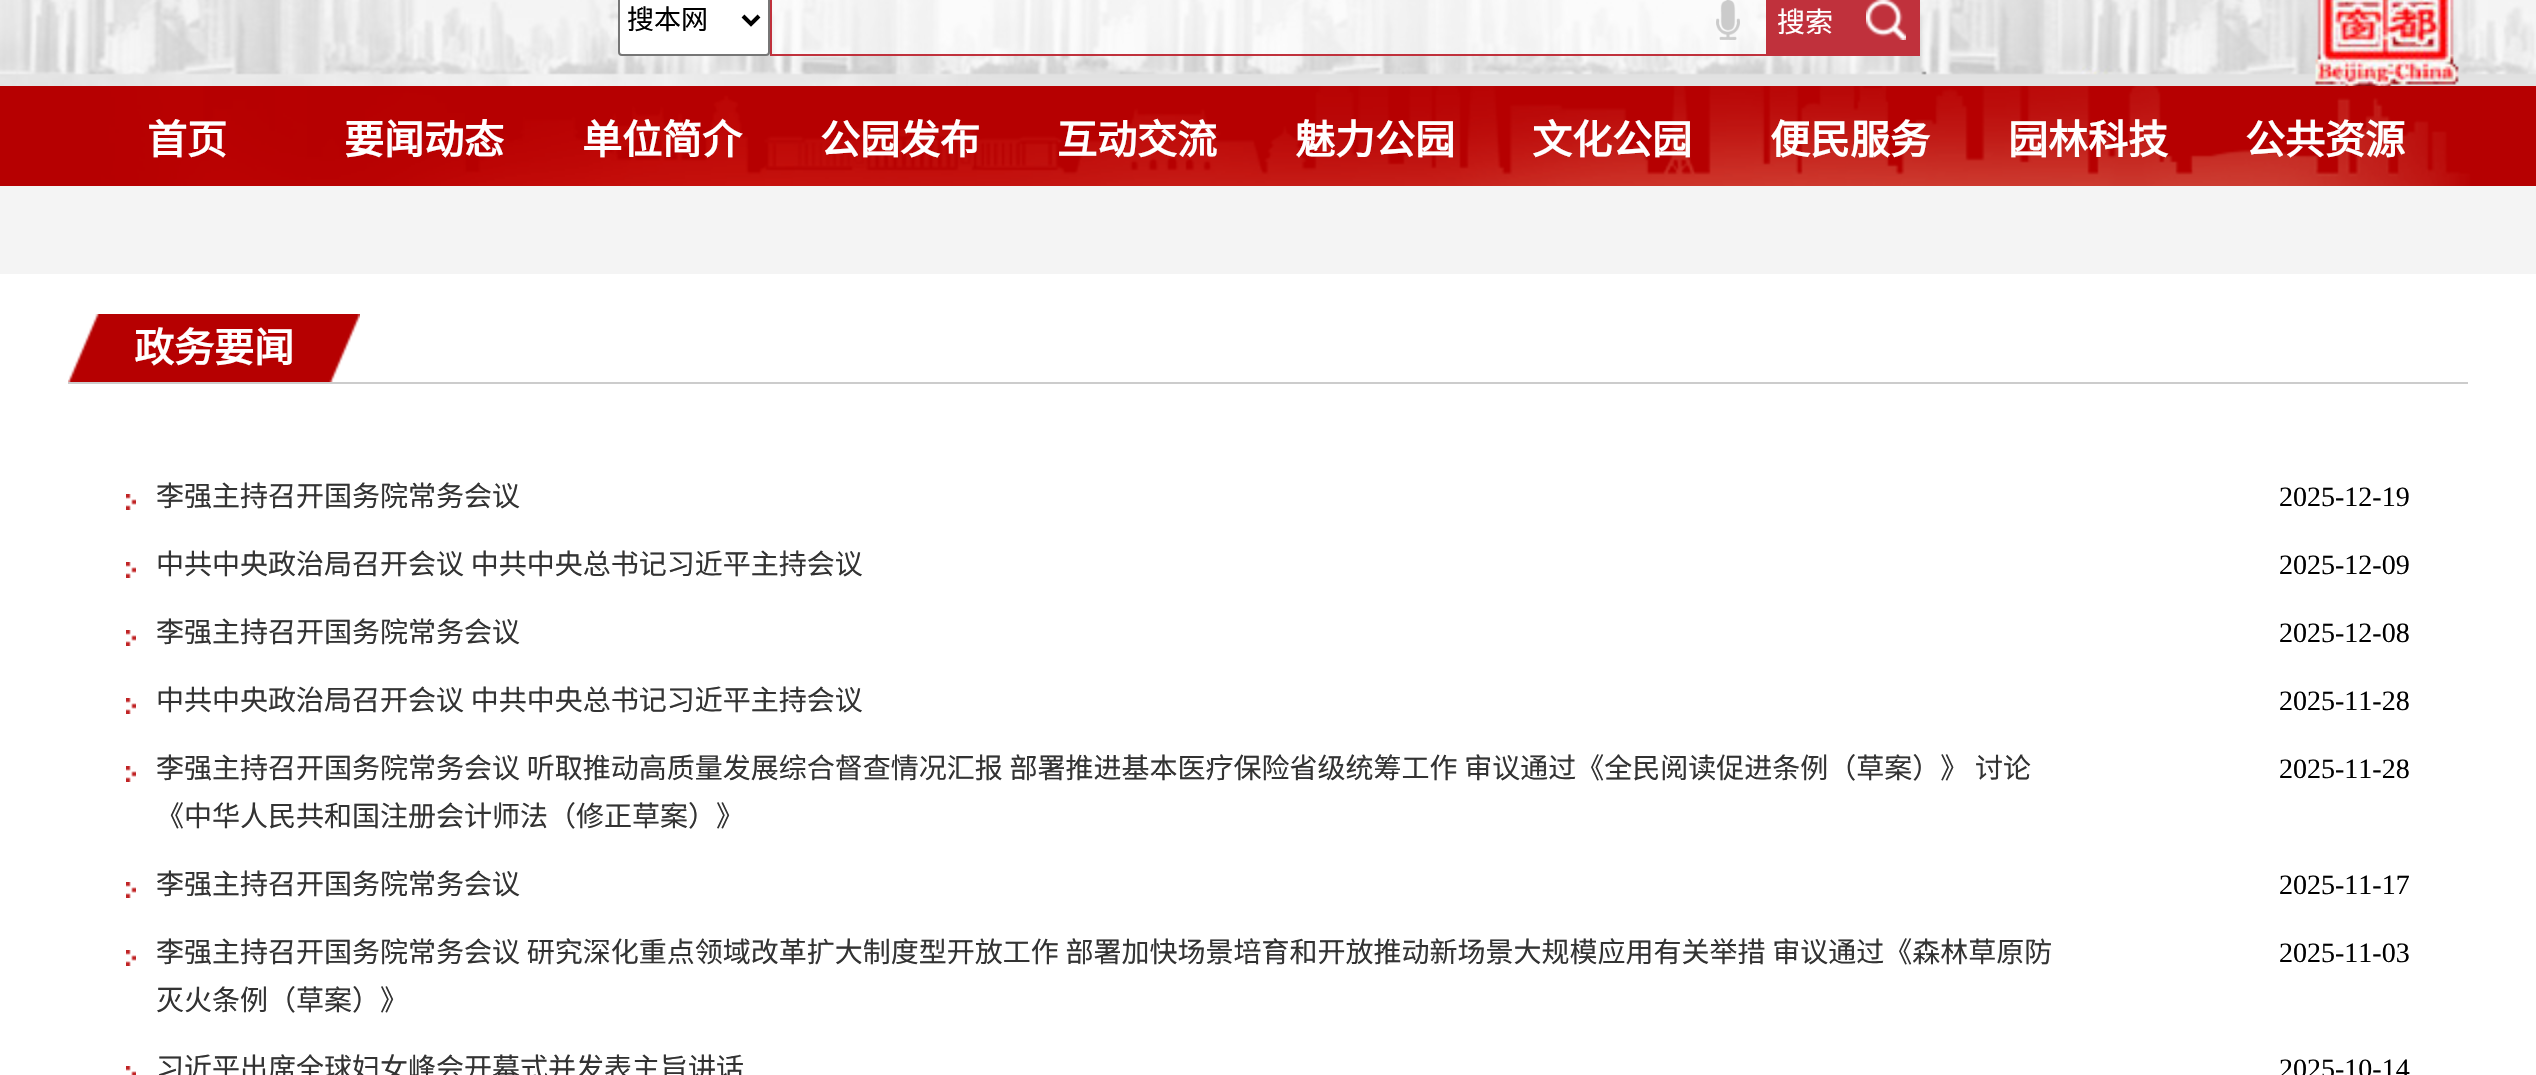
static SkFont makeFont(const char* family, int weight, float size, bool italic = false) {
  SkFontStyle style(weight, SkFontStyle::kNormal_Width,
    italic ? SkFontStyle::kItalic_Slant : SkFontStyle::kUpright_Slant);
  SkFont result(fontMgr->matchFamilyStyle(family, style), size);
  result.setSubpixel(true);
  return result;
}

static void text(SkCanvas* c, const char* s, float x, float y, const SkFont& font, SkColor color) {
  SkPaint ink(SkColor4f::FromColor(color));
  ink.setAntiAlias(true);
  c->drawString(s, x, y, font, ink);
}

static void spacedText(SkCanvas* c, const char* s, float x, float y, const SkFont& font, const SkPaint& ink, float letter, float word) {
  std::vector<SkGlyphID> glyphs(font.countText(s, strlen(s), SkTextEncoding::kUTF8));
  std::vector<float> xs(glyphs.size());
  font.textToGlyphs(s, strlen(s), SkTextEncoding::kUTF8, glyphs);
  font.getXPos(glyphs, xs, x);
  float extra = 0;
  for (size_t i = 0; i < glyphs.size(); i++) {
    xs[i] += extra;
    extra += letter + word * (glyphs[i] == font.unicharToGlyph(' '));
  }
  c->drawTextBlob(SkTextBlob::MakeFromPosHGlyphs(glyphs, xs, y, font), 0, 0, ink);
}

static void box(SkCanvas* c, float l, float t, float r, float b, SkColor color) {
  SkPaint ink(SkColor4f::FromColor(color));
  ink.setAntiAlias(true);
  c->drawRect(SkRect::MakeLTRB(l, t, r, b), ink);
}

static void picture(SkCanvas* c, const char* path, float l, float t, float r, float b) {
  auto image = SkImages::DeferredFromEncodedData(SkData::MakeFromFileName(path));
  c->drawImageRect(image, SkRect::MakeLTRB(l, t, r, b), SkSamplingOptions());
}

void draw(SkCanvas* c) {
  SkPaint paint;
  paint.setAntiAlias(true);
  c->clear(0xffffffff);
  picture(c, "img_01.png", 0, 0, 2536, 86);
  box(c, 772, 0, 1766, 54, 0x99ffffff);
  box(c, 770, 54, 1766, 56, 0xffc0313c);
  box(c, 770, 0, 772, 56, 0xffc0313c);
  paint.setColor(0xffffffff);
  c->drawRoundRect(SkRect::MakeLTRB(619, -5, 769, 55), 3, 3, paint);
  paint.setStyle(SkPaint::kStroke_Style);
  paint.setStrokeWidth(2);
  paint.setColor(0xff767676);
  c->drawRoundRect(SkRect::MakeLTRB(619, -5, 769, 55), 3, 3, paint);
  paint.setStrokeWidth(4);
  paint.setColor(0xff000000);
  c->drawPath(SkPathBuilder().moveTo(743, 16).lineTo(751, 24).lineTo(759, 16).detach(), paint);
  SkFont face1 = makeFont("Noto Sans CJK SC", 400, 27);
  text(c, "搜本网", 627, 29, face1, 0xff000000);
  picture(c, "img_02.png", 1716, 0, 1740, 40);
  box(c, 1766, 0, 1920, 56, 0xffc0313c);
  picture(c, "img_03.png", 1866, 0, 1906, 40);
  SkFont face2 = makeFont("Noto Sans CJK SC", 400, 28);
  text(c, "搜索", 1777, 32, face2, 0xffffffff);
  picture(c, "img_04.png", 2314, 0, 2459, 86);
  picture(c, "img_05.png", 0, 86, 2536, 186);
  SkFont face3 = makeFont("Noto Sans CJK SC", 700, 40);
  text(c, "首页", 147, 154, face3, 0xffffffff);
  text(c, "要闻动态", 344, 154, face3, 0xffffffff);
  text(c, "单位简介", 582, 154, face3, 0xffffffff);
  text(c, "公园发布", 820, 154, face3, 0xffffffff);
  text(c, "互动交流", 1057, 154, face3, 0xffffffff);
  text(c, "魅力公园", 1295, 154, face3, 0xffffffff);
  text(c, "文化公园", 1532, 154, face3, 0xffffffff);
  text(c, "便民服务", 1770, 154, face3, 0xffffffff);
  text(c, "园林科技", 2008, 154, face3, 0xffffffff);
  text(c, "公共资源", 2245, 154, face3, 0xffffffff);
  box(c, 0, 186, 2536, 274, 0xfff4f4f4);
  picture(c, "img_06.png", 68, 314, 297, 382);
  box(c, 68, 382, 2468, 384, 0xffcccccc);
  picture(c, "img_07.png", 297, 314, 360, 382);
  text(c, "政务要闻", 134, 362, face3, 0xffffffff);
  picture(c, "img_08.png", 126, 494, 136, 510);
  text(c, "李强主持召开国务院常务会议", 156, 506, face2, 0xff333333);
  SkFont face4 = makeFont("Liberation Serif", 400, 28);
  text(c, "2025-12-19", 2279, 506, face4, 0xff000000);
  picture(c, "img_08.png", 126, 562, 136, 578);
  paint.setStyle(SkPaint::kFill_Style);
  paint.setColor(0xff333333);
  spacedText(c, "中共中央政治局召开会议 中共中央总书记习近平主持会议", 156, 574, face2, paint, 0, 0.5f);
  text(c, "2025-12-09", 2279, 574, face4, 0xff000000);
  picture(c, "img_08.png", 126, 630, 136, 646);
  text(c, "李强主持召开国务院常务会议", 156, 642, face2, 0xff333333);
  text(c, "2025-12-08", 2279, 642, face4, 0xff000000);
  picture(c, "img_08.png", 126, 698, 136, 714);
  spacedText(c, "中共中央政治局召开会议 中共中央总书记习近平主持会议", 156, 710, face2, paint, 0, 0.5f);
  text(c, "2025-11-28", 2279, 710, face4, 0xff000000);
  picture(c, "img_08.png", 126, 766, 136, 782);
  spacedText(c, "李强主持召开国务院常务会议 听取推动高质量发展综合督查情况汇报 部署推进基本医疗保险省级统筹工作 审议通过《全民阅读促进条例（草案）》 讨论", 156, 778, face2, paint, 0, 0.5f);
  text(c, "《中华人民共和国注册会计师法（修正草案）》", 156, 826, face2, 0xff333333);
  text(c, "2025-11-28", 2279, 778, face4, 0xff000000);
  picture(c, "img_08.png", 126, 882, 136, 898);
  text(c, "李强主持召开国务院常务会议", 156, 894, face2, 0xff333333);
  text(c, "2025-11-17", 2279, 894, face4, 0xff000000);
  picture(c, "img_08.png", 126, 950, 136, 966);
  spacedText(c, "李强主持召开国务院常务会议 研究深化重点领域改革扩大制度型开放工作 部署加快场景培育和开放推动新场景大规模应用有关举措 审议通过《森林草原防", 156, 962, face2, paint, 0, 0.5f);
  text(c, "灭火条例（草案）》", 156, 1010, face2, 0xff333333);
  text(c, "2025-11-03", 2279, 962, face4, 0xff000000);
  picture(c, "img_09.png", 126, 1066, 136, 1075);
  text(c, "习近平出席全球妇女峰会开幕式并发表主旨讲话", 156, 1078, face2, 0xff333333);
  text(c, "2025-10-14", 2279, 1078, face4, 0xff000000);
}
